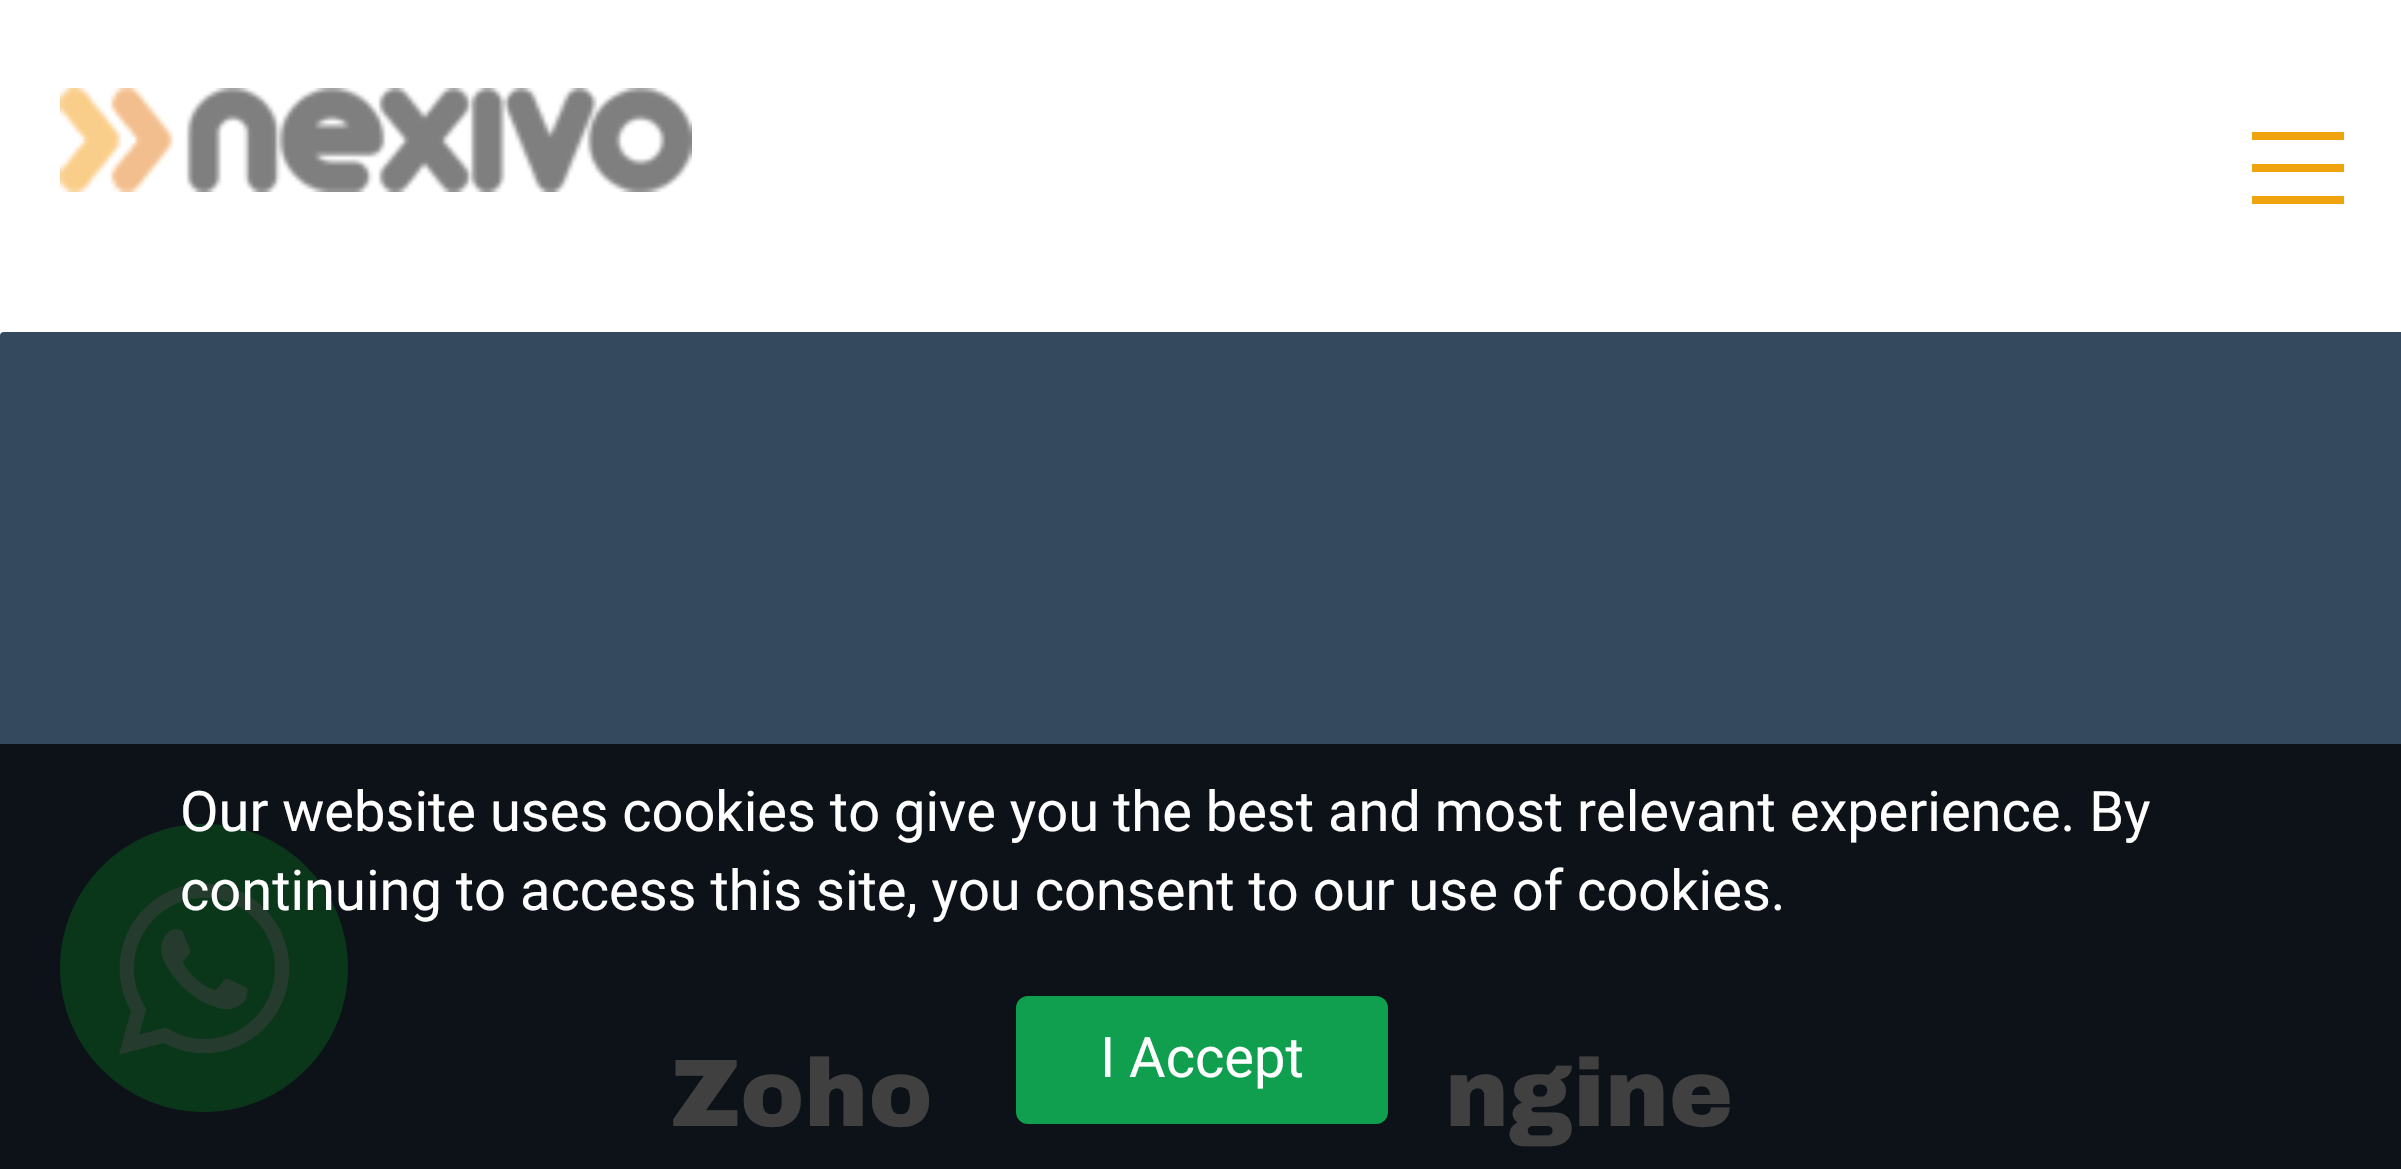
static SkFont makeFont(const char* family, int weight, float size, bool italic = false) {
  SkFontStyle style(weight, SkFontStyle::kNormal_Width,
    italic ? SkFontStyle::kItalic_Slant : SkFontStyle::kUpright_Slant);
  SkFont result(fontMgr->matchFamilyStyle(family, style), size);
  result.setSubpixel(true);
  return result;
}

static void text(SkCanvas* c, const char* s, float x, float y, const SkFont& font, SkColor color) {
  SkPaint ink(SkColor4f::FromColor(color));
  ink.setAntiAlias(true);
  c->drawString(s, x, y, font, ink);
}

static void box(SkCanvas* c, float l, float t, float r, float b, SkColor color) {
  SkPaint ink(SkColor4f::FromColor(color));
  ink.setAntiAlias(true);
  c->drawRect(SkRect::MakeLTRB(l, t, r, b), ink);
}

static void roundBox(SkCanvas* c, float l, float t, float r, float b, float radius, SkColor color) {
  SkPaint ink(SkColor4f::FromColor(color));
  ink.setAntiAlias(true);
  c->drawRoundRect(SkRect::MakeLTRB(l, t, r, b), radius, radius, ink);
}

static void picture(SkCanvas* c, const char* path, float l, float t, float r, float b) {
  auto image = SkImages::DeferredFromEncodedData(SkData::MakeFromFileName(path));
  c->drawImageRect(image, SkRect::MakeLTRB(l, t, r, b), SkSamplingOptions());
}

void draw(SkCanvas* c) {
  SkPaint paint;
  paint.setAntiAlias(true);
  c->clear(0xffffffff);
  picture(c, "img_01.png", 60, 88, 692, 192);
  box(c, 2252, 132, 2344, 140, 0xffefa30e);
  box(c, 2252, 164, 2344, 172, 0xffefa30e);
  box(c, 2252, 196, 2344, 204, 0xffefa30e);
  roundBox(c, 0, 332, 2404, 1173, 4, 0xff34495e);
  box(c, 0, 744, 2401, 1169, 0xff0d1218);
  paint.setColor(0xff09351a);
  c->drawCircle(204, 968, 144, paint);
  picture(c, "img_02.png", 60, 824, 348, 1112);
  SkFont face1 = makeFont("Roboto", 400, 56);
  text(c, "Our website uses cookies to give you the best and most relevant experience. By", 180, 831, face1, 0xffffffff);
  text(c, "continuing to access this site, you consent to our use of cookies.", 180, 910, face1, 0xffffffff);
  paint.setColor(0xff0f9f4f);
  c->drawRoundRect(SkRect::MakeLTRB(1018, 998, 1386, 1122), 10, 10, paint);
  paint.setStyle(SkPaint::kStroke_Style);
  paint.setStrokeWidth(4);
  c->drawRoundRect(SkRect::MakeLTRB(1018, 998, 1386, 1122), 10, 10, paint);
  text(c, "I Accept", 1100, 1077, face1, 0xffffffff);
  SkFont face2 = makeFont("Archivo Black", 900, 96);
  text(c, "Zoho", 671, 1126, face2, 0xff404040);
  text(c, "ngine", 1445, 1126, face2, 0xff404040);
}
